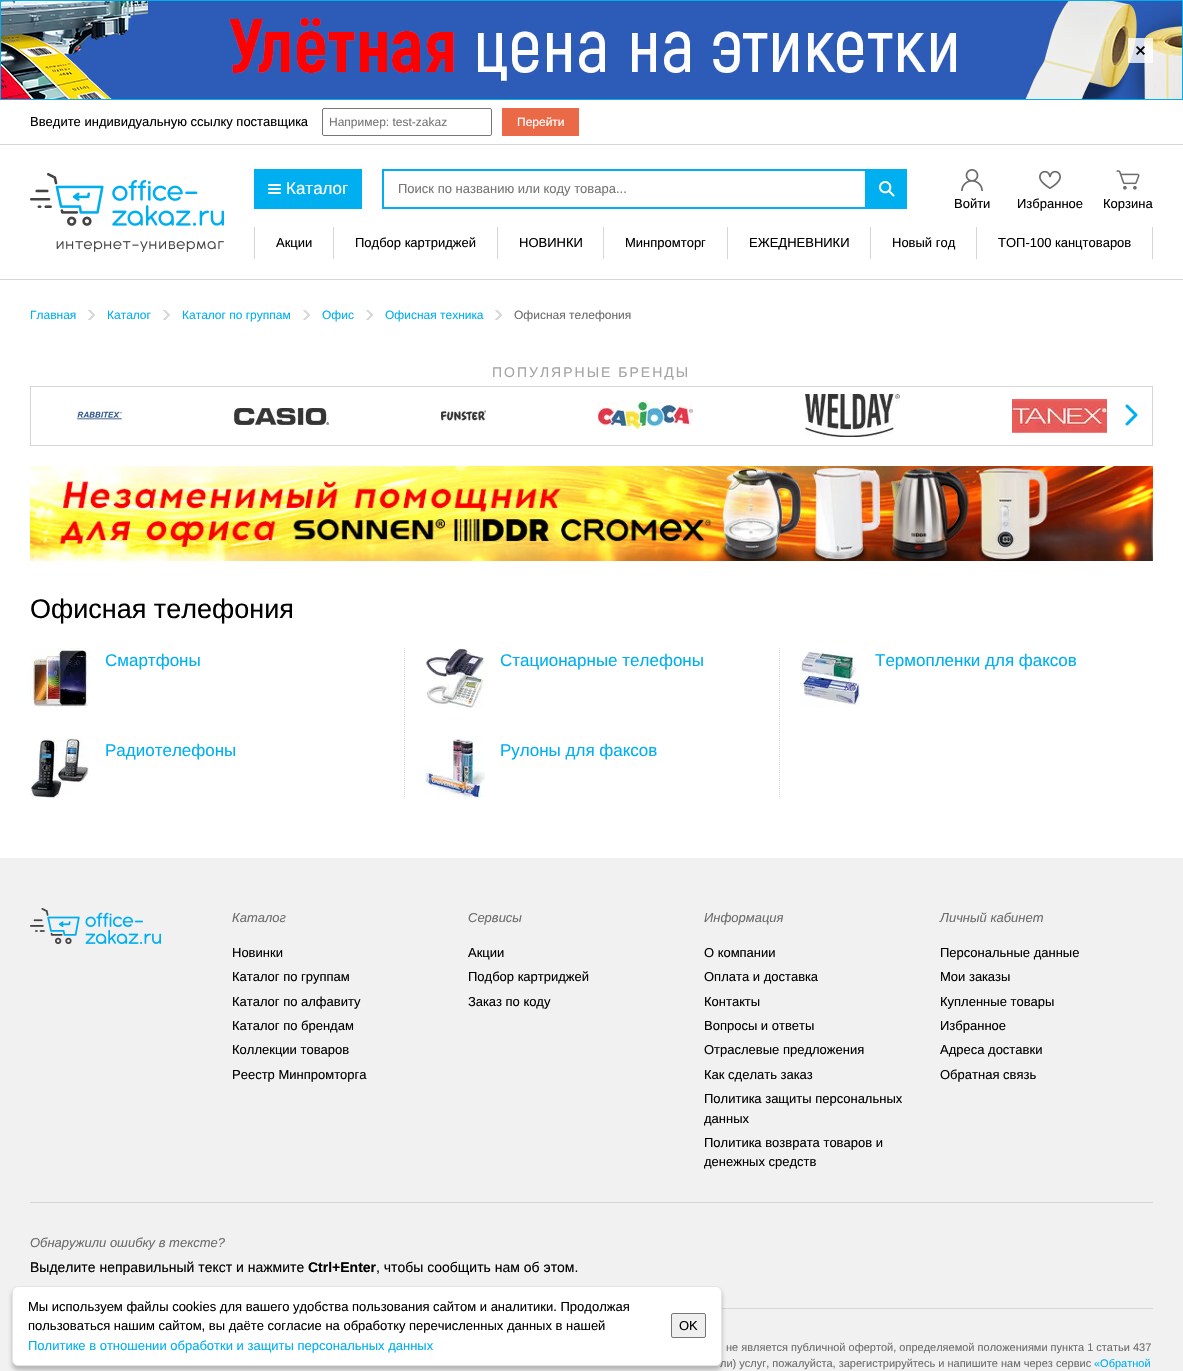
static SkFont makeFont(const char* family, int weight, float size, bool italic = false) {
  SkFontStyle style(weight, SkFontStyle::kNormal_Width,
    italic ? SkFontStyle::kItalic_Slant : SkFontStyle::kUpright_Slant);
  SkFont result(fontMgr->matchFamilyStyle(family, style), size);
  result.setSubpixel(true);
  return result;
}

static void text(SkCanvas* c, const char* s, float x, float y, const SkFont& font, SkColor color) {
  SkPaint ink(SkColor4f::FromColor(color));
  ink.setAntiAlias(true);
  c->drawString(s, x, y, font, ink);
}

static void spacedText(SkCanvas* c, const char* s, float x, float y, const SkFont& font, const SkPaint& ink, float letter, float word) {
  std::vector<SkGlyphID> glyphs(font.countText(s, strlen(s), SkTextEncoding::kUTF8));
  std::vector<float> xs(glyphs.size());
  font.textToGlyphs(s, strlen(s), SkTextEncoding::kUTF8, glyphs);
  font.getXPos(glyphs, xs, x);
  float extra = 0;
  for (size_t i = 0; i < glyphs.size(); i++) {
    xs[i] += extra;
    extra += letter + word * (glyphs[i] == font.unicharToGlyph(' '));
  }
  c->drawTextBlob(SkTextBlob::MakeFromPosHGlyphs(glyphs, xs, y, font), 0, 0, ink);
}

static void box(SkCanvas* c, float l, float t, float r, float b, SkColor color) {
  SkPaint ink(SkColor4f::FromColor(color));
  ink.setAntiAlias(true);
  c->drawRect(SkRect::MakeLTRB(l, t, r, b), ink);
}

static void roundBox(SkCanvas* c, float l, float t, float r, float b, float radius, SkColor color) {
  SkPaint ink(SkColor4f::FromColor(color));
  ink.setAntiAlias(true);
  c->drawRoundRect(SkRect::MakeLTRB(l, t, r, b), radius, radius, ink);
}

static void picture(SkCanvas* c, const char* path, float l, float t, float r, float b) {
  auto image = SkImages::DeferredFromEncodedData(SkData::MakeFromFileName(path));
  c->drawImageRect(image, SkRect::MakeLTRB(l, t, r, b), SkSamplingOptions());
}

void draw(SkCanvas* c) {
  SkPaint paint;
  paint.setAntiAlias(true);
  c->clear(0xffffffff);
  picture(c, "img_01.png", 1, 1, 1182, 99);
  paint.setStyle(SkPaint::kStroke_Style);
  paint.setStrokeWidth(1);
  paint.setColor(0xff00aff0);
  c->drawRect(SkRect::MakeLTRB(0.5f, 0.5f, 1182.5f, 99.5f), paint);
  box(c, 1128, 38, 1153, 63, 0xccffffff);
  picture(c, "img_02.png", 1136, 46, 1145, 55);
  box(c, 0, 144, 1183, 145, 0xffd6d6d6);
  SkFont face1 = makeFont("Liberation Sans", 400, 13);
  text(c, "Введите индивидуальную ссылку поставщика", 30, 126, face1, 0xff000000);
  paint.setColor(0xff767676);
  c->drawRoundRect(SkRect::MakeLTRB(322.5f, 108.5f, 491.5f, 135.5f), 1.5f, 1.5f, paint);
  SkFont face2 = makeFont("Liberation Sans", 400, 12);
  text(c, "Например: test-zakaz", 329, 126, face2, 0xff757575);
  box(c, 502, 108, 579, 136, 0xffea6a48);
  text(c, "Перейти", 517, 126, face2, 0xffffffff);
  box(c, 0, 279, 1183, 280, 0xffd6d6d6);
  picture(c, "img_03.png", 30, 173, 224, 252);
  box(c, 254, 169, 362, 209, 0xff00aff0);
  roundBox(c, 268, 188, 281, 190, 1, 0xffffffff);
  roundBox(c, 268, 184, 281, 186, 1, 0xffffffff);
  roundBox(c, 268, 192, 281, 194, 1, 0xffffffff);
  SkFont face3 = makeFont("Liberation Sans", 400, 17);
  text(c, "Каталог", 286, 194, face3, 0xffffffff);
  paint.setStrokeWidth(2);
  paint.setColor(0xff00aff0);
  c->drawRect(SkRect::MakeLTRB(383, 170, 906, 208), paint);
  text(c, "Поиск по названию или коду товара...", 398, 193, face1, 0xff757575);
  box(c, 865, 171, 905, 207, 0xff00aff0);
  picture(c, "img_04.png", 879, 181, 895, 197);
  picture(c, "img_05.png", 961, 169, 983, 191);
  text(c, "Войти", 954, 208, face1, 0xff000000);
  picture(c, "img_06.png", 1039, 170, 1061, 189);
  text(c, "Избранное", 1017, 208, face1, 0xff000000);
  picture(c, "img_07.png", 1116, 170, 1140, 190);
  text(c, "Корзина", 1103, 208, face1, 0xff000000);
  box(c, 333, 227, 334, 259, 0xffd6d6d6);
  box(c, 254, 227, 255, 259, 0xffd6d6d6);
  text(c, "Акции", 276, 247, face1, 0xff000000);
  box(c, 497, 227, 498, 259, 0xffd6d6d6);
  text(c, "Подбор картриджей", 355, 247, face1, 0xff000000);
  box(c, 603, 227, 604, 259, 0xffd6d6d6);
  text(c, "НОВИНКИ", 519, 247, face1, 0xff000000);
  box(c, 727, 227, 728, 259, 0xffd6d6d6);
  text(c, "Минпромторг", 625, 247, face1, 0xff000000);
  box(c, 870, 227, 871, 259, 0xffd6d6d6);
  text(c, "ЕЖЕДНЕВНИКИ", 749, 247, face1, 0xff000000);
  box(c, 976, 227, 977, 259, 0xffd6d6d6);
  text(c, "Новый год", 892, 247, face1, 0xff000000);
  box(c, 1152, 227, 1153, 259, 0xffd6d6d6);
  text(c, "ТОП-100 канцтоваров", 998, 247, face1, 0xff000000);
  text(c, "Главная", 30, 319, face2, 0xff00aff0);
  picture(c, "img_08.png", 88, 310, 95, 320);
  text(c, "Каталог", 107, 319, face2, 0xff00aff0);
  picture(c, "img_08.png", 163, 310, 170, 320);
  text(c, "Каталог по группам", 182, 319, face2, 0xff00aff0);
  picture(c, "img_08.png", 303, 310, 310, 320);
  text(c, "Офис", 322, 319, face2, 0xff00aff0);
  picture(c, "img_08.png", 366, 310, 373, 320);
  text(c, "Офисная техника", 385, 319, face2, 0xff00aff0);
  picture(c, "img_08.png", 495, 310, 502, 320);
  text(c, "Офисная телефония", 514, 319, face2, 0xff6c6c6c);
  SkFont face4 = makeFont("Liberation Sans", 400, 14);
  paint.setStyle(SkPaint::kFill_Style);
  paint.setColor(0xffa4a4a4);
  spacedText(c, "ПОПУЛЯРНЫЕ БРЕНДЫ", 492, 377, face4, paint, 2, 0);
  paint.setStyle(SkPaint::kStroke_Style);
  paint.setStrokeWidth(1);
  paint.setColor(0xffd6d6d6);
  c->drawRect(SkRect::MakeLTRB(30.5f, 386.5f, 1152.5f, 445.5f), paint);
  picture(c, "img_09.png", 77, 411, 122, 420);
  picture(c, "img_10.png", 234, 408, 329, 425);
  picture(c, "img_11.png", 441, 409, 486, 421);
  picture(c, "img_12.png", 598, 402, 693, 430);
  picture(c, "img_13.png", 805, 394, 900, 437);
  picture(c, "img_14.png", 1012, 399, 1107, 433);
  picture(c, "img_15.png", 1125, 404, 1138, 426);
  picture(c, "img_16.png", 30, 466, 1153, 561);
  SkFont face5 = makeFont("Liberation Sans", 400, 27);
  text(c, "Офисная телефония", 30, 618, face5, 0xff000000);
  picture(c, "img_17.png", 30, 648, 90, 708);
  text(c, "Смартфоны", 105, 666, face3, 0xff00aff0);
  picture(c, "img_18.png", 30, 738, 90, 798);
  text(c, "Радиотелефоны", 105, 756, face3, 0xff00aff0);
  paint.setPathEffect(SkDashPathEffect::Make({{1, 1}}, 0));
  c->drawPath(SkPathBuilder().moveTo(404.5f, 648).lineTo(404.5f, 798).detach(), paint);
  paint.setPathEffect(nullptr);
  picture(c, "img_19.png", 425, 648, 485, 708);
  text(c, "Стационарные телефоны", 500, 666, face3, 0xff00aff0);
  picture(c, "img_20.png", 425, 738, 485, 798);
  text(c, "Рулоны для факсов", 500, 756, face3, 0xff00aff0);
  paint.setPathEffect(SkDashPathEffect::Make({{1, 1}}, 0));
  c->drawPath(SkPathBuilder().moveTo(779.5f, 648).lineTo(779.5f, 798).detach(), paint);
  paint.setPathEffect(nullptr);
  picture(c, "img_21.png", 800, 652, 860, 708);
  text(c, "Термопленки для факсов", 875, 666, face3, 0xff00aff0);
  box(c, 0, 858, 1183, 1371, 0xfff1f1f1);
  picture(c, "img_22.png", 30, 908, 161, 944);
  SkFont face6 = makeFont("Liberation Sans", 400, 13, true);
  text(c, "Каталог", 232, 922, face6, 0xff6c6c6c);
  text(c, "Новинки", 232, 957, face1, 0xff000000);
  text(c, "Каталог по группам", 232, 981, face1, 0xff000000);
  text(c, "Каталог по алфавиту", 232, 1006, face1, 0xff000000);
  text(c, "Каталог по брендам", 232, 1030, face1, 0xff000000);
  text(c, "Коллекции товаров", 232, 1054, face1, 0xff000000);
  text(c, "Реестр Минпромторга", 232, 1079, face1, 0xff000000);
  text(c, "Сервисы", 468, 922, face6, 0xff6c6c6c);
  text(c, "Акции", 468, 957, face1, 0xff000000);
  text(c, "Подбор картриджей", 468, 981, face1, 0xff000000);
  text(c, "Заказ по коду", 468, 1006, face1, 0xff000000);
  text(c, "Информация", 704, 922, face6, 0xff6c6c6c);
  text(c, "О компании", 704, 957, face1, 0xff000000);
  text(c, "Оплата и доставка", 704, 981, face1, 0xff000000);
  text(c, "Контакты", 704, 1006, face1, 0xff000000);
  text(c, "Вопросы и ответы", 704, 1030, face1, 0xff000000);
  text(c, "Отраслевые предложения", 704, 1054, face1, 0xff000000);
  text(c, "Как сделать заказ", 704, 1079, face1, 0xff000000);
  text(c, "Политика защиты персональных", 704, 1103, face1, 0xff000000);
  text(c, "данных", 704, 1123, face1, 0xff000000);
  text(c, "Политика возврата товаров и", 704, 1147, face1, 0xff000000);
  text(c, "денежных средств", 704, 1166, face1, 0xff000000);
  text(c, "Личный кабинет", 940, 922, face6, 0xff6c6c6c);
  text(c, "Персональные данные", 940, 957, face1, 0xff000000);
  text(c, "Мои заказы", 940, 981, face1, 0xff000000);
  text(c, "Купленные товары", 940, 1006, face1, 0xff000000);
  text(c, "Избранное", 940, 1030, face1, 0xff000000);
  text(c, "Адреса доставки", 940, 1054, face1, 0xff000000);
  text(c, "Обратная связь", 940, 1079, face1, 0xff000000);
  box(c, 30, 1202, 1153, 1203, 0xffd6d6d6);
  text(c, "Обнаружили ошибку в тексте?", 30, 1247, face6, 0xff6c6c6c);
  text(c, "Выделите неправильный текст и нажмите", 30, 1272, face4, 0xff000000);
  SkFont face7 = makeFont("Liberation Sans", 700, 14);
  text(c, "Ctrl+Enter", 308, 1272, face7, 0xff000000);
  text(c, ", чтобы сообщить нам об этом.", 376, 1272, face4, 0xff000000);
  box(c, 722, 1308, 1153, 1309, 0xffd6d6d6);
  SkFont face8 = makeFont("Liberation Sans", 400, 11);
  text(c, "не является публичной офертой, определяемой положениями пункта 1 статьи 437", 726, 1351, face8, 0xff6c6c6c);
  text(c, "ли) услуг, пожалуйста, зарегистрируйтесь и напишите нам через сервис", 720, 1367, face8, 0xff6c6c6c);
  text(c, "«Обратной", 1094, 1367, face8, 0xff00aff0);
  paint.setStyle(SkPaint::kFill_Style);
  paint.setColor(0x40000000);
  paint.setMaskFilter(SkMaskFilter::MakeBlur(kNormal_SkBlurStyle, 2));
  c->drawRoundRect(SkRect::MakeLTRB(12, 1290, 722, 1370), 6, 6, paint);
  paint.setMaskFilter(nullptr);
  paint.setColor(0xffffffff);
  c->drawRoundRect(SkRect::MakeLTRB(12.5f, 1286.5f, 721.5f, 1365.5f), 5.5f, 5.5f, paint);
  paint.setStyle(SkPaint::kStroke_Style);
  paint.setColor(0xffe5e5e5);
  c->drawRoundRect(SkRect::MakeLTRB(12.5f, 1286.5f, 721.5f, 1365.5f), 5.5f, 5.5f, paint);
  text(c, "Мы используем файлы cookies для вашего удобства пользования сайтом и аналитики. Продолжая", 28, 1311, face1, 0xff000000);
  text(c, "пользоваться нашим сайтом, вы даёте согласие на обработку перечисленных данных в нашей", 28, 1330, face1, 0xff000000);
  text(c, "Политике в отношении обработки и защиты персональных данных", 28, 1350, face1, 0xff00aff0);
  paint.setStyle(SkPaint::kFill_Style);
  paint.setColor(0xffefefef);
  c->drawRoundRect(SkRect::MakeLTRB(671.5f, 1313.5f, 705.5f, 1337.5f), 1.5f, 1.5f, paint);
  paint.setStyle(SkPaint::kStroke_Style);
  paint.setColor(0xff767676);
  c->drawRoundRect(SkRect::MakeLTRB(671.5f, 1313.5f, 705.5f, 1337.5f), 1.5f, 1.5f, paint);
  text(c, "OK", 679, 1330, face1, 0xff000000);
}
